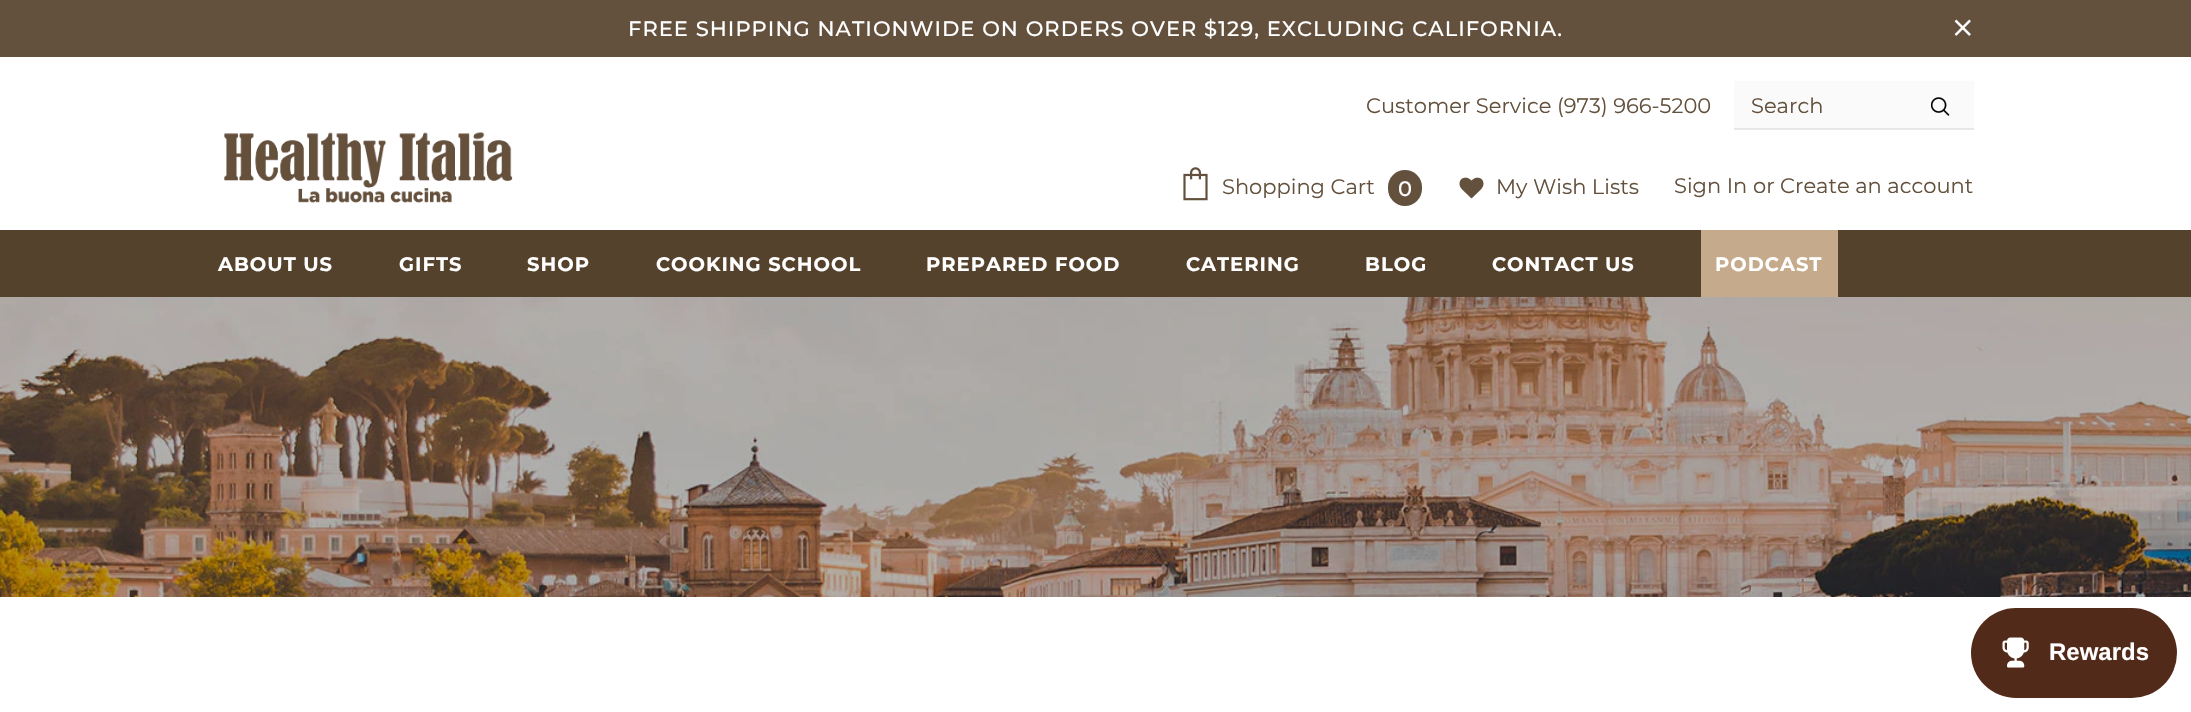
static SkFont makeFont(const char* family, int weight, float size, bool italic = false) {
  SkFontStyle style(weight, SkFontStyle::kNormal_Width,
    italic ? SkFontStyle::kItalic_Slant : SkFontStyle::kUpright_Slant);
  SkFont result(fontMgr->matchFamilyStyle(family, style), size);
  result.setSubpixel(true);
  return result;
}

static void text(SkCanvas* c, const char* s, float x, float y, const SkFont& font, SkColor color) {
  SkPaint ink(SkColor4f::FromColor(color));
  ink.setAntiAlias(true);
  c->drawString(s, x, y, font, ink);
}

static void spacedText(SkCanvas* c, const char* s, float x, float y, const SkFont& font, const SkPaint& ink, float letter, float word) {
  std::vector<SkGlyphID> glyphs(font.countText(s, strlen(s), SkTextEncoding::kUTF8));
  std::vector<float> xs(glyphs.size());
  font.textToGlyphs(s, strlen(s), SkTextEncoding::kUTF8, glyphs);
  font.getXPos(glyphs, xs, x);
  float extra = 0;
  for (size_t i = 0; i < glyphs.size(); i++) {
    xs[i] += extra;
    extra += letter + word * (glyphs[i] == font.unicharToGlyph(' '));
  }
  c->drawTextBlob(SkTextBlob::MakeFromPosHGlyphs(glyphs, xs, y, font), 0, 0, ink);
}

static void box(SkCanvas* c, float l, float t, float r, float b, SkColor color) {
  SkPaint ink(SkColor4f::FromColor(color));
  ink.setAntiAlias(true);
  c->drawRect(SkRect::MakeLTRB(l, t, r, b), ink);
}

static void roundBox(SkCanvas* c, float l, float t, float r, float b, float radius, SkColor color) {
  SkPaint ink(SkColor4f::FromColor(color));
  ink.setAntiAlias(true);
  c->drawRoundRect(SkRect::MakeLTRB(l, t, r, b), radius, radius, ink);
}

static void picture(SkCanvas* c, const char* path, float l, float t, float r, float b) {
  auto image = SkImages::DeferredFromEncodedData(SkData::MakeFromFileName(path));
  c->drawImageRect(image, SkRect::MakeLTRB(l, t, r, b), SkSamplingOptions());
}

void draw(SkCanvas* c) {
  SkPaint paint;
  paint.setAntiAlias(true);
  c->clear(0xffffffff);
  box(c, 0, 0, 2191, 57, 0xff63513d);
  SkFont face1 = makeFont("Montserrat", 500, 21);
  paint.setColor(0xffffffff);
  spacedText(c, "FREE SHIPPING NATIONWIDE ON ORDERS OVER $129, EXCLUDING CALIFORNIA.", 628, 36, face1, paint, 1.05f, 0);
  picture(c, "img_01.png", 1954, 19, 1971, 36);
  SkFont face2 = makeFont("Montserrat", 400, 21);
  text(c, "Customer Service (973) 966-5200", 1366, 113, face2, 0xff63513d);
  box(c, 1734, 81, 1974, 128, 0xfffafafa);
  box(c, 1734, 128, 1974, 130, 0xffe7e7e7);
  text(c, "Search", 1751, 113, face2, 0xff63513d);
  picture(c, "img_02.png", 1931, 97, 1950, 116);
  picture(c, "img_03.png", 224, 132, 513, 203);
  picture(c, "img_04.png", 1183, 167, 1208, 201);
  text(c, "Shopping Cart", 1222, 194, face2, 0xff63513d);
  roundBox(c, 1388, 170, 1422, 206, 17, 0xff63513d);
  text(c, "0", 1398, 196, face1, 0xffffffff);
  picture(c, "img_05.png", 1459, 177, 1484, 199);
  text(c, "My Wish Lists", 1496, 194, face2, 0xff63513d);
  text(c, "Sign In", 1674, 193, face2, 0xff63513d);
  text(c, "or Create an account", 1753, 193, face2, 0xff63513d);
  box(c, 0, 230, 2191, 297, 0xff54422d);
  SkFont face3 = makeFont("Montserrat", 700, 19.5f);
  spacedText(c, "ABOUT US", 218, 271, face3, paint, 1, 0);
  spacedText(c, "GIFTS", 399, 271, face3, paint, 1, 0);
  spacedText(c, "SHOP", 527, 271, face3, paint, 1, 0);
  spacedText(c, "COOKING SCHOOL", 656, 271, face3, paint, 1, 0);
  spacedText(c, "PREPARED FOOD", 926, 271, face3, paint, 1, 0);
  spacedText(c, "CATERING", 1186, 271, face3, paint, 1, 0);
  spacedText(c, "BLOG", 1365, 271, face3, paint, 1, 0);
  spacedText(c, "CONTACT US", 1492, 271, face3, paint, 1, 0);
  box(c, 1701, 230, 1838, 297, 0xffc5aa8b);
  spacedText(c, "PODCAST", 1715, 271, face3, paint, 1, 0);
  picture(c, "img_06.png", 0, 297, 2191, 597);
  roundBox(c, 1971, 608, 2177, 698, 45, 0xff522a1a);
  picture(c, "img_07.png", 2002, 637, 2029, 668);
  SkFont face4 = makeFont("Liberation Sans", 700, 24);
  text(c, "Rewards", 2049, 660, face4, 0xffffffff);
}
